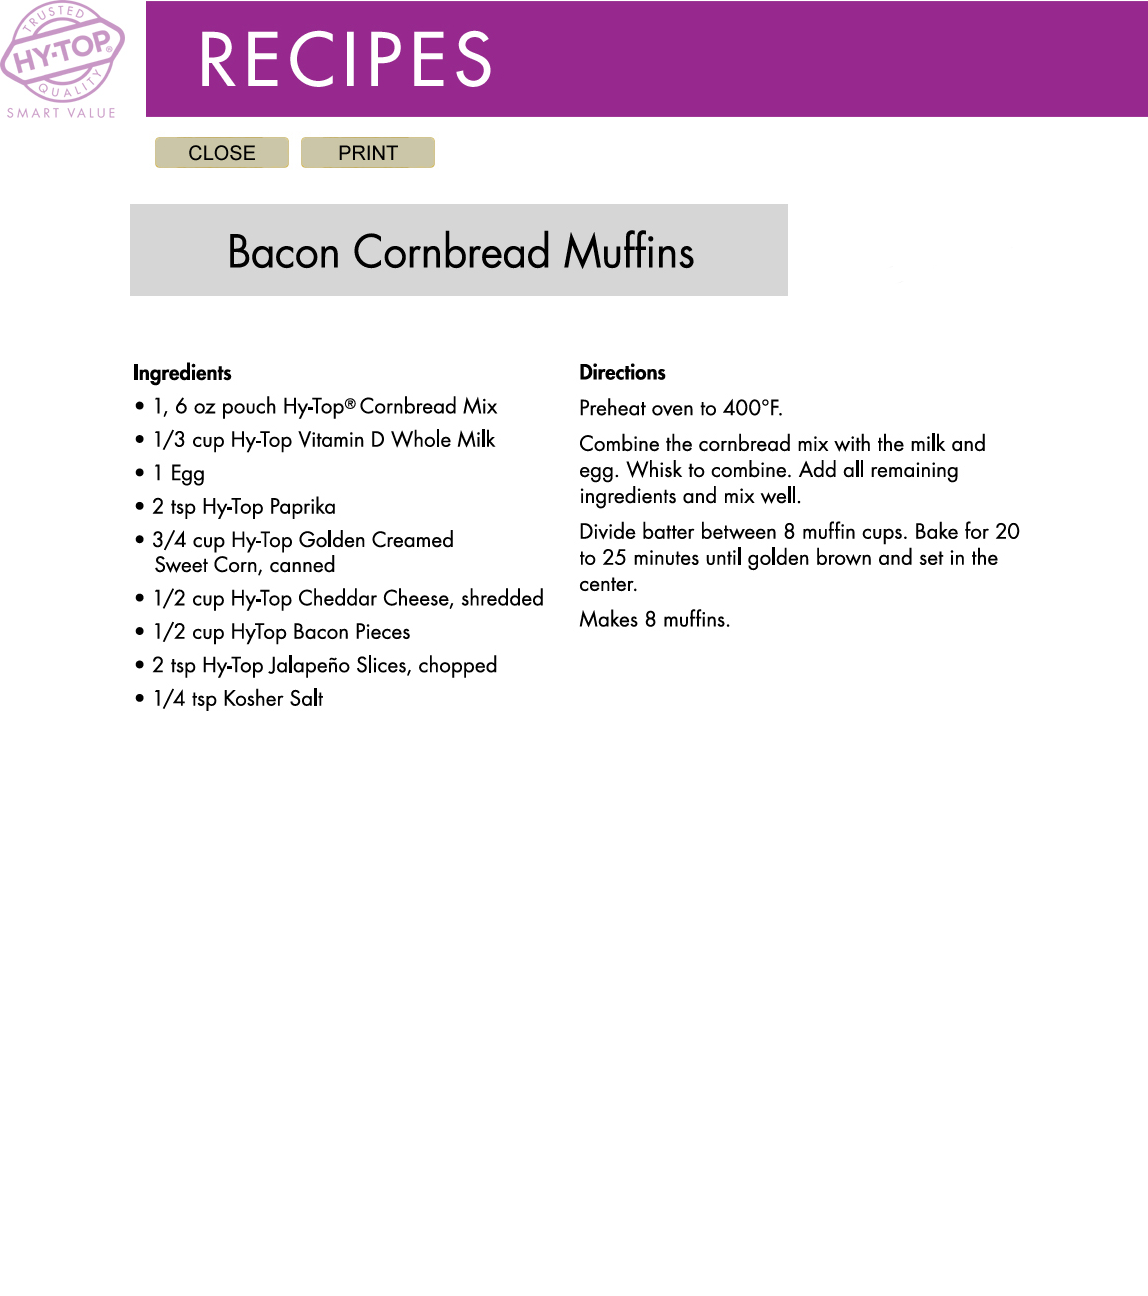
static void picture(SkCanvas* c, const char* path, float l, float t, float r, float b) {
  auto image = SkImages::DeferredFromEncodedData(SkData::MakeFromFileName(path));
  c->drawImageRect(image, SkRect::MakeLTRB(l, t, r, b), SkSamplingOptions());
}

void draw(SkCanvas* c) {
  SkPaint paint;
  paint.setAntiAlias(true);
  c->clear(0xffffffff);
  picture(c, "img_01.png", 0, 0, 1148, 118);
  picture(c, "img_02.png", 149, 131, 293, 170);
  picture(c, "img_03.png", 295, 131, 439, 170);
  picture(c, "img_04.png", 130, 204, 1020, 711);
}
